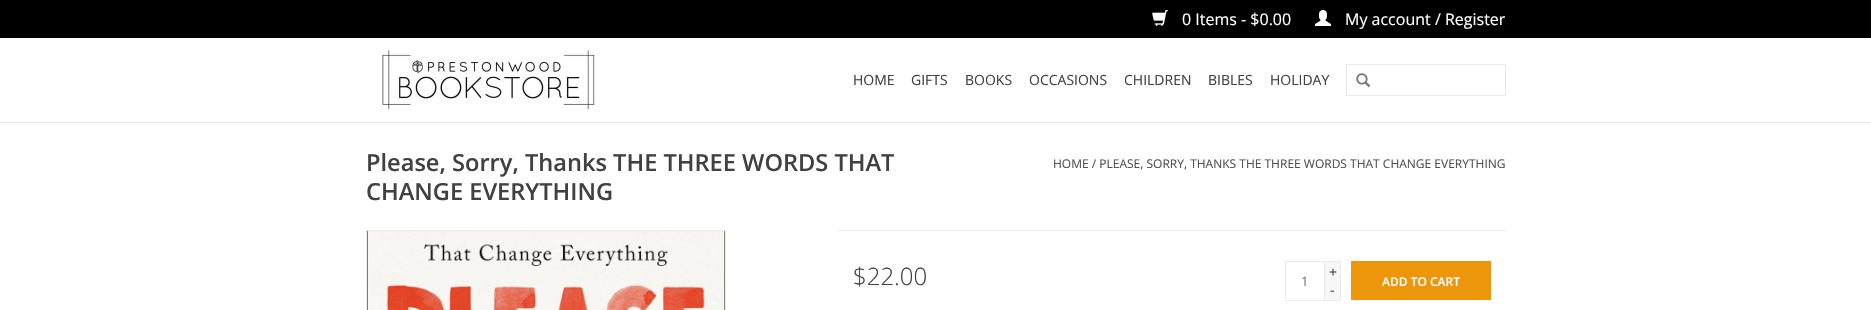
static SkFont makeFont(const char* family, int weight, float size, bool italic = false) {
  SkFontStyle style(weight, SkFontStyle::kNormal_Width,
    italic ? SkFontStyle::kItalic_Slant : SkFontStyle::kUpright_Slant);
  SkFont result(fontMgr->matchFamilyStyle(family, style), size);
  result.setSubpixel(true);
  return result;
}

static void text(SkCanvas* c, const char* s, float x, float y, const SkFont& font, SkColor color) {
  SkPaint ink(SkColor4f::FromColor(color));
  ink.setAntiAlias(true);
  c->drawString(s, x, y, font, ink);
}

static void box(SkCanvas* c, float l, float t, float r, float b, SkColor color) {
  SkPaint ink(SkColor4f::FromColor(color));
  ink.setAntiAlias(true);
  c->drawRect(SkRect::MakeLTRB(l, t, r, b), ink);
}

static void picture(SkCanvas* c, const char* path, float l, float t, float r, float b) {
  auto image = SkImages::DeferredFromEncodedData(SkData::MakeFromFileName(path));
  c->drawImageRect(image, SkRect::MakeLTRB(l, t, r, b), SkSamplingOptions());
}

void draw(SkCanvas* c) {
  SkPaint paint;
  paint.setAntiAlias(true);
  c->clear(0xffffffff);
  box(c, 0, 122, 1871, 123, 0xffeaeaea);
  box(c, 0, 0, 1871, 38, 0xff000000);
  picture(c, "img_01.png", 1152, 10, 1168, 26);
  SkFont face1 = makeFont("Open Sans", 400, 16);
  text(c, "0 Items - $0.00", 1182, 25, face1, 0xffffffff);
  picture(c, "img_02.png", 1315, 10, 1331, 26);
  text(c, "My account / Register", 1345, 25, face1, 0xffffffff);
  picture(c, "img_03.png", 382, 50, 595, 110);
  SkFont face2 = makeFont("Open Sans", 400, 14);
  text(c, "HOME", 853, 85, face2, 0xff414141);
  text(c, "GIFTS", 911, 85, face2, 0xff414141);
  text(c, "BOOKS", 965, 85, face2, 0xff414141);
  text(c, "OCCASIONS", 1029, 85, face2, 0xff414141);
  text(c, "CHILDREN", 1124, 85, face2, 0xff414141);
  text(c, "BIBLES", 1208, 85, face2, 0xff414141);
  text(c, "HOLIDAY", 1270, 85, face2, 0xff414141);
  paint.setStyle(SkPaint::kStroke_Style);
  paint.setStrokeWidth(1);
  paint.setColor(0xffeaeaea);
  c->drawRect(SkRect::MakeLTRB(1346.5f, 64.5f, 1505.5f, 95.5f), paint);
  picture(c, "img_04.png", 1356, 73, 1371, 88);
  SkFont face3 = makeFont("Open Sans", 600, 23.6f);
  text(c, "Please, Sorry, Thanks THE THREE WORDS THAT", 366, 171, face3, 0xff414141);
  text(c, "CHANGE EVERYTHING", 366, 200, face3, 0xff414141);
  SkFont face4 = makeFont("Open Sans", 400, 12);
  text(c, "HOME / PLEASE, SORRY, THANKS THE THREE WORDS THAT CHANGE EVERYTHING", 1053, 168, face4, 0xff505050);
  c->drawRect(SkRect::MakeLTRB(366.5f, 230.5f, 725.5f, 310.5f), paint);
  picture(c, "img_05.png", 367, 231, 725, 310);
  box(c, 838, 230, 1506, 231, 0xffeaeaea);
  SkFont face5 = makeFont("Open Sans", 300, 24);
  text(c, "$22.00", 853, 285, face5, 0xff414141);
  c->drawRect(SkRect::MakeLTRB(1285.5f, 261.5f, 1324.5f, 300.5f), paint);
  SkFont face6 = makeFont("Open Sans", 400, 13);
  text(c, "1", 1301, 286, face6, 0xff777777);
  box(c, 1325, 262, 1340, 300, 0xfff7f7f7);
  box(c, 1325, 261, 1341, 262, 0xffeaeaea);
  box(c, 1340, 261, 1341, 301, 0xffeaeaea);
  box(c, 1325, 300, 1341, 301, 0xffeaeaea);
  text(c, "+", 1329, 277, face2, 0xff414141);
  text(c, "-", 1330, 295, face2, 0xff414141);
  box(c, 1351, 261, 1491, 300, 0xffed950b);
  SkFont face7 = makeFont("Open Sans", 600, 12);
  text(c, "ADD TO CART", 1382, 286, face7, 0xffffffff);
}
